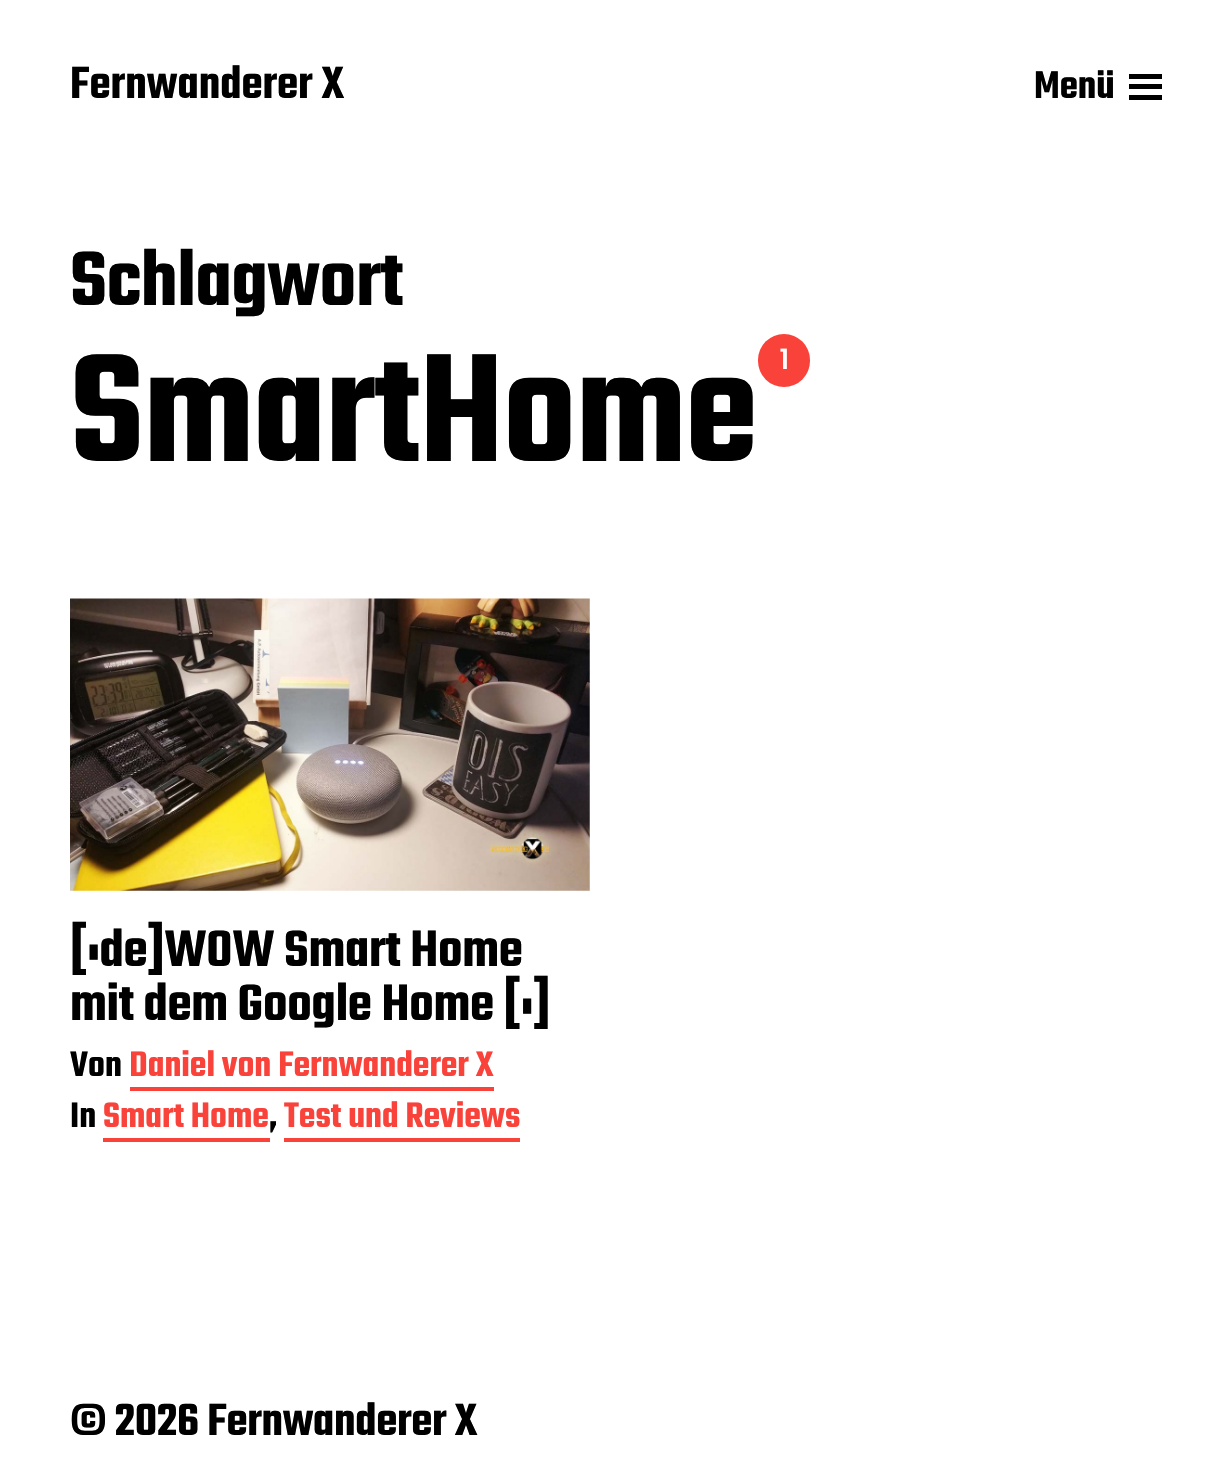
static SkFont makeFont(const char* family, int weight, float size, bool italic = false) {
  SkFontStyle style(weight, SkFontStyle::kNormal_Width,
    italic ? SkFontStyle::kItalic_Slant : SkFontStyle::kUpright_Slant);
  SkFont result(fontMgr->matchFamilyStyle(family, style), size);
  result.setSubpixel(true);
  return result;
}

static void text(SkCanvas* c, const char* s, float x, float y, const SkFont& font, SkColor color) {
  SkPaint ink(SkColor4f::FromColor(color));
  ink.setAntiAlias(true);
  c->drawString(s, x, y, font, ink);
}

static void spacedText(SkCanvas* c, const char* s, float x, float y, const SkFont& font, const SkPaint& ink, float letter, float word) {
  std::vector<SkGlyphID> glyphs(font.countText(s, strlen(s), SkTextEncoding::kUTF8));
  std::vector<float> xs(glyphs.size());
  font.textToGlyphs(s, strlen(s), SkTextEncoding::kUTF8, glyphs);
  font.getXPos(glyphs, xs, x);
  float extra = 0;
  for (size_t i = 0; i < glyphs.size(); i++) {
    xs[i] += extra;
    extra += letter + word * (glyphs[i] == font.unicharToGlyph(' '));
  }
  c->drawTextBlob(SkTextBlob::MakeFromPosHGlyphs(glyphs, xs, y, font), 0, 0, ink);
}

static void box(SkCanvas* c, float l, float t, float r, float b, SkColor color) {
  SkPaint ink(SkColor4f::FromColor(color));
  ink.setAntiAlias(true);
  c->drawRect(SkRect::MakeLTRB(l, t, r, b), ink);
}

static void roundBox(SkCanvas* c, float l, float t, float r, float b, float radius, SkColor color) {
  SkPaint ink(SkColor4f::FromColor(color));
  ink.setAntiAlias(true);
  c->drawRoundRect(SkRect::MakeLTRB(l, t, r, b), radius, radius, ink);
}

static void picture(SkCanvas* c, const char* path, float l, float t, float r, float b) {
  auto image = SkImages::DeferredFromEncodedData(SkData::MakeFromFileName(path));
  c->drawImageRect(image, SkRect::MakeLTRB(l, t, r, b), SkSamplingOptions());
}

void draw(SkCanvas* c) {
  SkPaint paint;
  paint.setAntiAlias(true);
  c->clear(0xffffffff);
  SkFont face1 = makeFont("Teko", 600, 49);
  text(c, "Fernwanderer X", 70, 98, face1, 0xff000000);
  SkFont face2 = makeFont("Teko", 600, 42);
  text(c, "Menü", 1034, 98, face2, 0xff000000);
  box(c, 1129, 74, 1162, 79, 0xff000000);
  box(c, 1129, 84, 1162, 89, 0xff000000);
  box(c, 1129, 95, 1162, 100, 0xff000000);
  SkFont face3 = makeFont("Teko", 600, 84);
  paint.setColor(0xff000000);
  spacedText(c, "Schlagwort", 70, 305, face3, paint, -0.5f, 0);
  SkFont face4 = makeFont("Teko", 600, 168);
  spacedText(c, "SmartHome", 70, 461, face4, paint, -0.75f, 0);
  roundBox(c, 758, 334, 810, 387, 26, 0xfff9423a);
  SkFont face5 = makeFont("Teko", 500, 32);
  paint.setColor(0xffffffff);
  spacedText(c, "1", 780, 369, face5, paint, -0.75f, 0);
  picture(c, "img_01.png", 70, 598, 590, 891);
  SkFont face6 = makeFont("Teko", 600, 56);
  paint.setColor(0xff000000);
  spacedText(c, "[:de]WOW Smart Home", 70, 966, face6, paint, -0.25f, 0);
  spacedText(c, "mit dem Google Home [:]", 70, 1020, face6, paint, -0.25f, 0);
  SkFont face7 = makeFont("Teko", 600, 38.5f);
  text(c, "Von", 70, 1076, face7, 0xff000000);
  box(c, 130, 1087, 494, 1091, 0xfff9423a);
  text(c, "Daniel von Fernwanderer X", 129, 1076, face7, 0xfff9423a);
  text(c, "In", 70, 1127, face7, 0xff000000);
  box(c, 103, 1138, 270, 1142, 0xfff9423a);
  text(c, "Smart Home", 103, 1127, face7, 0xfff9423a);
  text(c, ",", 269, 1127, face7, 0xff000000);
  box(c, 284, 1138, 520, 1142, 0xfff9423a);
  text(c, "Test und Reviews", 284, 1127, face7, 0xfff9423a);
  spacedText(c, "© 2026 Fernwanderer X", 70, 1435, face1, paint, -0.3f, 0);
}
